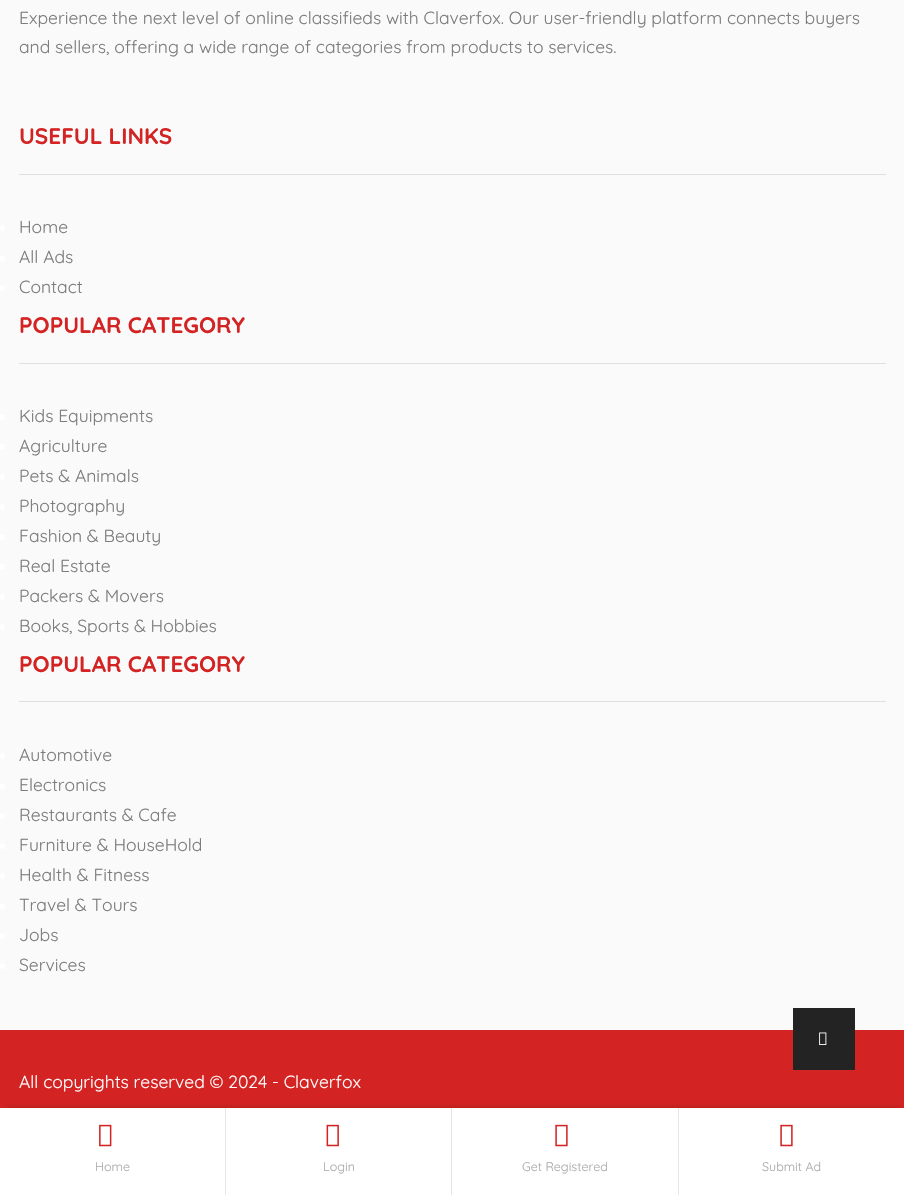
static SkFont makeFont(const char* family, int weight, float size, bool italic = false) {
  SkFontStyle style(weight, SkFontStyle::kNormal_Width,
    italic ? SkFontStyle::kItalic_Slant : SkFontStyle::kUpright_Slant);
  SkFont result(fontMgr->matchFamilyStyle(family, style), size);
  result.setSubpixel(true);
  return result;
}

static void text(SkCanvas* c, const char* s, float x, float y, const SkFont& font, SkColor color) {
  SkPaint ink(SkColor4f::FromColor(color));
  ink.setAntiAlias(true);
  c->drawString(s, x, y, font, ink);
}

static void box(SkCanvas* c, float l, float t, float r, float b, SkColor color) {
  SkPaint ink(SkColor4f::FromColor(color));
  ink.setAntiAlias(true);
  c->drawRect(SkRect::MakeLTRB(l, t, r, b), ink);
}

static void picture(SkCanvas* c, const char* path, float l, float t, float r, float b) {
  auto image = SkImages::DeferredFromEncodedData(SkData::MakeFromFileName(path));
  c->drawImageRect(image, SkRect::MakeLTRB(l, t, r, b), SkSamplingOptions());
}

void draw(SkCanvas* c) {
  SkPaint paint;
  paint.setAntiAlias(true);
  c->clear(0xfffafafa);
  SkFont face1 = makeFont("Quicksand", 400, 17.5f);
  text(c, "Experience the next level of online classifieds with Claverfox. Our user-friendly platform connects buyers", 19, 24, face1, 0xff7c7c7c);
  text(c, "and sellers, offering a wide range of categories from products to services.", 19, 53, face1, 0xff7c7c7c);
  box(c, 19, 174, 886, 175, 0xffe0e0e0);
  SkFont face2 = makeFont("Quicksand", 700, 22.5f);
  text(c, "USEFUL LINKS", 19, 144, face2, 0xffd32323);
  paint.setColor(0xffffffff);
  c->drawCircle(2, 228, 3, paint);
  text(c, "Home", 19, 233, face1, 0xff7c7c7c);
  c->drawCircle(2, 258, 3, paint);
  text(c, "All Ads", 19, 263, face1, 0xff7c7c7c);
  c->drawCircle(2, 288, 3, paint);
  text(c, "Contact", 19, 293, face1, 0xff7c7c7c);
  box(c, 19, 363, 886, 364, 0xffe0e0e0);
  text(c, "POPULAR CATEGORY", 19, 333, face2, 0xffd32323);
  c->drawCircle(2, 417, 3, paint);
  text(c, "Kids Equipments", 19, 422, face1, 0xff7c7c7c);
  c->drawCircle(2, 447, 3, paint);
  text(c, "Agriculture", 19, 452, face1, 0xff7c7c7c);
  c->drawCircle(2, 477, 3, paint);
  text(c, "Pets & Animals", 19, 482, face1, 0xff7c7c7c);
  c->drawCircle(2, 507, 3, paint);
  text(c, "Photography", 19, 512, face1, 0xff7c7c7c);
  c->drawCircle(2, 537, 3, paint);
  text(c, "Fashion & Beauty", 19, 542, face1, 0xff7c7c7c);
  c->drawCircle(2, 567, 3, paint);
  text(c, "Real Estate", 19, 572, face1, 0xff7c7c7c);
  c->drawCircle(2, 597, 3, paint);
  text(c, "Packers & Movers", 19, 602, face1, 0xff7c7c7c);
  c->drawCircle(2, 627, 3, paint);
  text(c, "Books, Sports & Hobbies", 19, 632, face1, 0xff7c7c7c);
  box(c, 19, 701, 886, 702, 0xffe0e0e0);
  text(c, "POPULAR CATEGORY", 19, 672, face2, 0xffd32323);
  c->drawCircle(2, 756, 3, paint);
  text(c, "Automotive", 19, 761, face1, 0xff7c7c7c);
  c->drawCircle(2, 786, 3, paint);
  text(c, "Electronics", 19, 791, face1, 0xff7c7c7c);
  c->drawCircle(2, 816, 3, paint);
  text(c, "Restaurants & Cafe", 19, 821, face1, 0xff7c7c7c);
  c->drawCircle(2, 846, 3, paint);
  text(c, "Furniture & HouseHold", 19, 851, face1, 0xff7c7c7c);
  c->drawCircle(2, 876, 3, paint);
  text(c, "Health & Fitness", 19, 881, face1, 0xff7c7c7c);
  c->drawCircle(2, 906, 3, paint);
  text(c, "Travel & Tours", 19, 911, face1, 0xff7c7c7c);
  c->drawCircle(2, 936, 3, paint);
  text(c, "Jobs", 19, 941, face1, 0xff7c7c7c);
  c->drawCircle(2, 966, 3, paint);
  text(c, "Services", 19, 971, face1, 0xff7c7c7c);
  box(c, 0, 1030, 904, 1108, 0xffd32323);
  box(c, 793, 1008, 855, 1070, 0xff232323);
  picture(c, "img_01.png", 819, 1032, 827, 1045);
  text(c, "All copyrights reserved © 2024 - Claverfox", 19, 1088, face1, 0xffffffff);
  paint.setColor(0x33000000);
  paint.setMaskFilter(SkMaskFilter::MakeBlur(kNormal_SkBlurStyle, 3));
  c->drawRect(SkRect::MakeLTRB(6, 1108, 899, 1183), paint);
  paint.setMaskFilter(nullptr);
  box(c, 0, 1108, 904, 1195, 0xffffffff);
  box(c, 225, 1108, 226, 1195, 0xffe6e6e6);
  picture(c, "img_02.png", 99, 1124, 112, 1147);
  SkFont face3 = makeFont("Quicksand", 400, 12.5f);
  text(c, "Home", 95, 1171, face3, 0xffaaaaaa);
  box(c, 451, 1108, 452, 1195, 0xffe6e6e6);
  picture(c, "img_03.png", 326, 1124, 339, 1147);
  text(c, "Login", 323, 1171, face3, 0xffaaaaaa);
  box(c, 678, 1108, 679, 1195, 0xffe6e6e6);
  picture(c, "img_04.png", 555, 1124, 568, 1147);
  text(c, "Get Registered", 522, 1171, face3, 0xffaaaaaa);
  picture(c, "img_04.png", 780, 1124, 793, 1147);
  text(c, "Submit Ad", 762, 1171, face3, 0xffaaaaaa);
}
